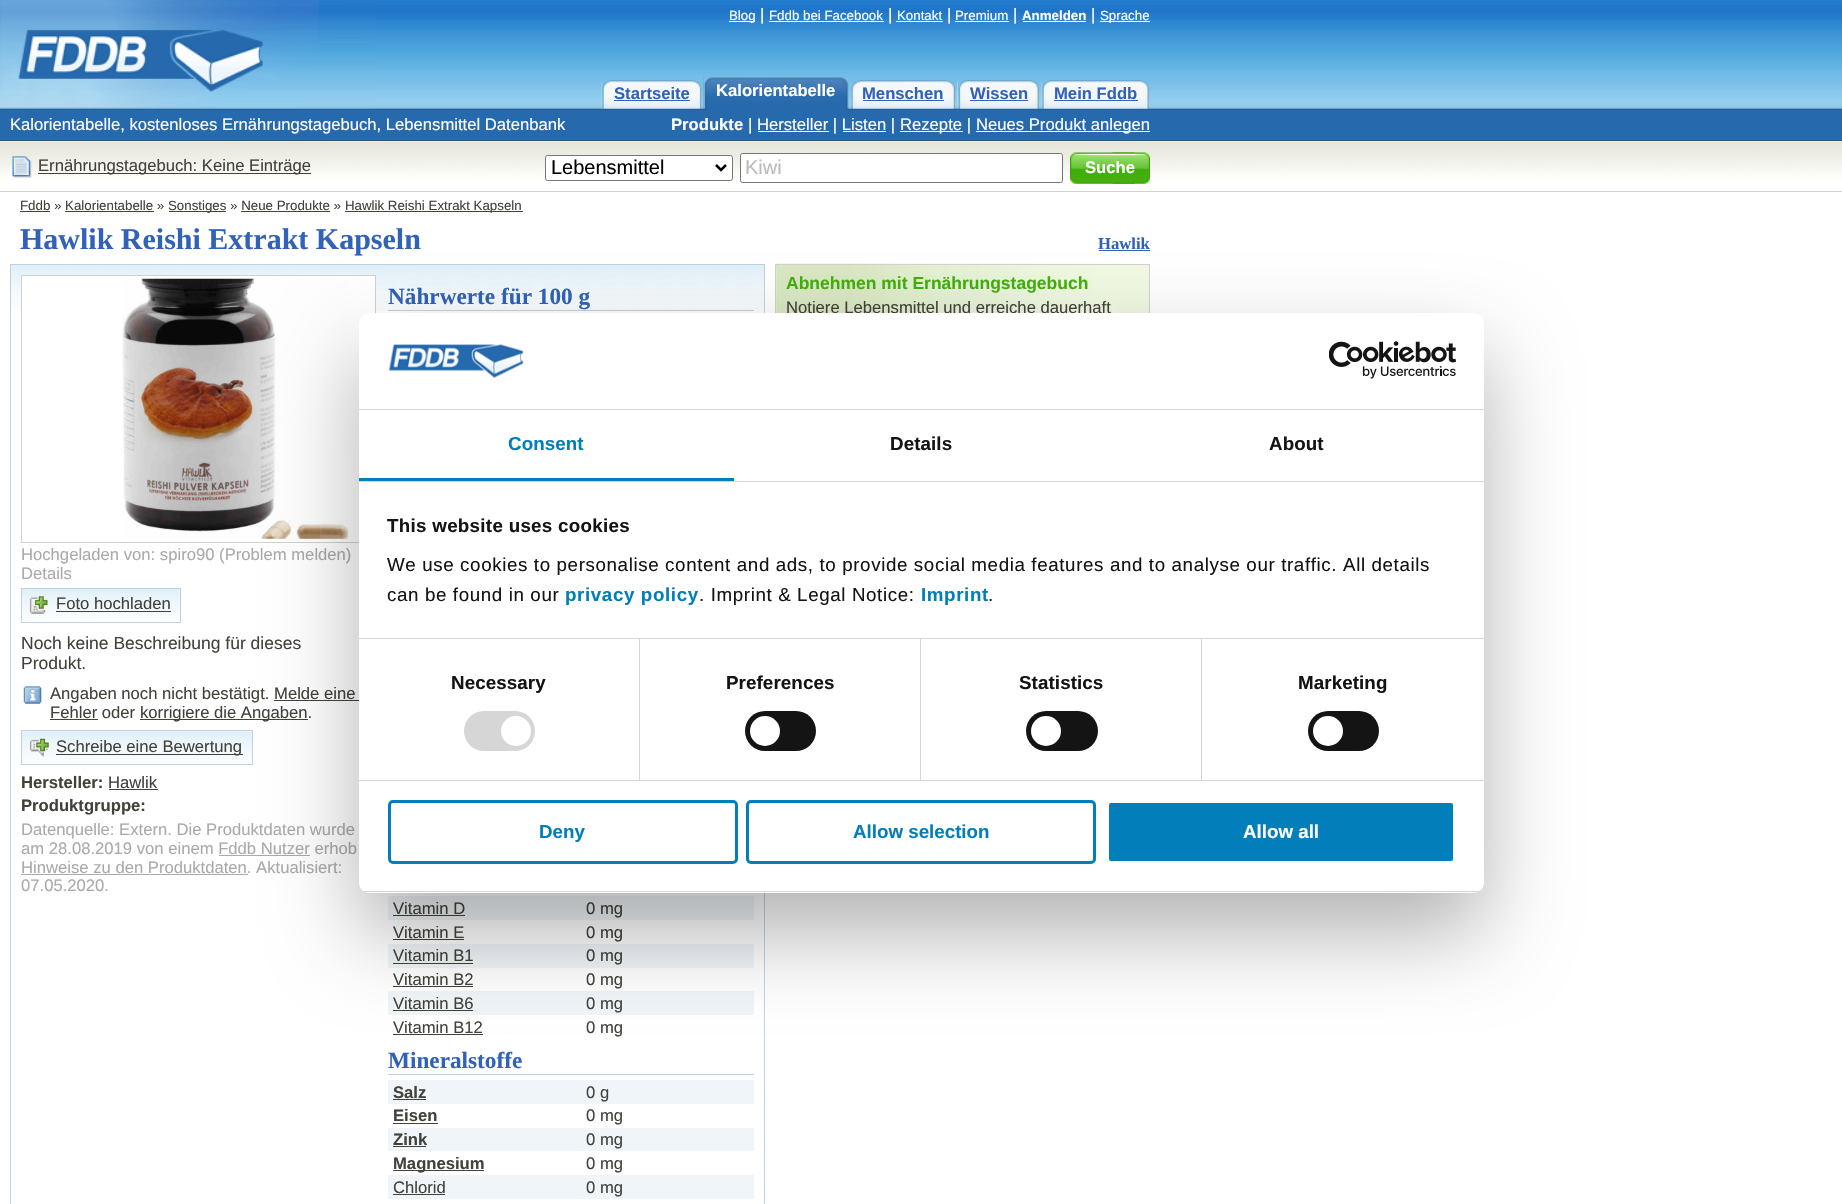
static SkFont makeFont(const char* family, int weight, float size, bool italic = false) {
  SkFontStyle style(weight, SkFontStyle::kNormal_Width,
    italic ? SkFontStyle::kItalic_Slant : SkFontStyle::kUpright_Slant);
  SkFont result(fontMgr->matchFamilyStyle(family, style), size);
  result.setSubpixel(true);
  return result;
}

static void text(SkCanvas* c, const char* s, float x, float y, const SkFont& font, SkColor color) {
  SkPaint ink(SkColor4f::FromColor(color));
  ink.setAntiAlias(true);
  c->drawString(s, x, y, font, ink);
}

static void spacedText(SkCanvas* c, const char* s, float x, float y, const SkFont& font, const SkPaint& ink, float letter, float word) {
  std::vector<SkGlyphID> glyphs(font.countText(s, strlen(s), SkTextEncoding::kUTF8));
  std::vector<float> xs(glyphs.size());
  font.textToGlyphs(s, strlen(s), SkTextEncoding::kUTF8, glyphs);
  font.getXPos(glyphs, xs, x);
  float extra = 0;
  for (size_t i = 0; i < glyphs.size(); i++) {
    xs[i] += extra;
    extra += letter + word * (glyphs[i] == font.unicharToGlyph(' '));
  }
  c->drawTextBlob(SkTextBlob::MakeFromPosHGlyphs(glyphs, xs, y, font), 0, 0, ink);
}

static void box(SkCanvas* c, float l, float t, float r, float b, SkColor color) {
  SkPaint ink(SkColor4f::FromColor(color));
  ink.setAntiAlias(true);
  c->drawRect(SkRect::MakeLTRB(l, t, r, b), ink);
}

static void roundBox(SkCanvas* c, float l, float t, float r, float b, float radius, SkColor color) {
  SkPaint ink(SkColor4f::FromColor(color));
  ink.setAntiAlias(true);
  c->drawRoundRect(SkRect::MakeLTRB(l, t, r, b), radius, radius, ink);
}

static void picture(SkCanvas* c, const char* path, float l, float t, float r, float b) {
  auto image = SkImages::DeferredFromEncodedData(SkData::MakeFromFileName(path));
  c->drawImageRect(image, SkRect::MakeLTRB(l, t, r, b), SkSamplingOptions());
}

void draw(SkCanvas* c) {
  SkPaint paint;
  paint.setAntiAlias(true);
  c->clear(0xffffffff);
  picture(c, "img_01.png", 0, 0, 1842, 110);
  picture(c, "img_02.png", 0, 0, 375, 109);
  box(c, 729, 21, 755, 22, 0xffffffff);
  SkFont face1 = makeFont("Liberation Sans", 400, 13.3f);
  text(c, "Blog", 729, 20, face1, 0xffffffff);
  SkFont face2 = makeFont("Liberation Sans", 400, 16.65f);
  text(c, "|", 760, 20, face2, 0xffffffff);
  text(c, "Fddb bei Facebook", 769, 20, face1, 0xffffffff);
  box(c, 769, 21, 884, 22, 0xffffffff);
  text(c, "|", 888, 20, face2, 0xffffffff);
  text(c, "Kontakt", 897, 20, face1, 0xffffffff);
  box(c, 896, 21, 943, 22, 0xffffffff);
  text(c, "|", 947, 20, face2, 0xffffffff);
  text(c, "Premium", 955, 20, face1, 0xffffffff);
  box(c, 955, 21, 1009, 22, 0xffffffff);
  text(c, "|", 1013, 20, face2, 0xffffffff);
  SkFont face3 = makeFont("Liberation Sans", 700, 13.3f);
  text(c, "Anmelden", 1022, 20, face3, 0xffffffff);
  box(c, 1023, 21, 1086, 22, 0xffffffff);
  text(c, "|", 1091, 20, face2, 0xffffffff);
  box(c, 1100, 21, 1150, 22, 0xffffffff);
  text(c, "Sprache", 1100, 20, face1, 0xffffffff);
  picture(c, "img_03.png", 601, 80, 702, 109);
  picture(c, "img_04.png", 601, 80, 610, 109);
  SkFont face4 = makeFont("Liberation Sans", 700, 16.65f);
  text(c, "Startseite", 614, 99, face4, 0xff3162b8);
  box(c, 614, 100, 690, 101, 0xff3162b8);
  picture(c, "img_05.png", 703, 77, 849, 110);
  picture(c, "img_06.png", 703, 77, 713, 110);
  text(c, "Kalorientabelle", 716, 96, face4, 0xffffffff);
  picture(c, "img_07.png", 860, 80, 956, 109);
  picture(c, "img_08.png", 850, 80, 860, 109);
  text(c, "Menschen", 862, 99, face4, 0xff3162b8);
  box(c, 863, 100, 944, 101, 0xff3162b8);
  picture(c, "img_09.png", 957, 80, 1040, 109);
  picture(c, "img_10.png", 957, 80, 967, 109);
  text(c, "Wissen", 970, 99, face4, 0xff3162b8);
  box(c, 970, 100, 1028, 101, 0xff3162b8);
  picture(c, "img_11.png", 1041, 80, 1150, 109);
  picture(c, "img_12.png", 1041, 80, 1050, 109);
  text(c, "Mein Fddb", 1054, 99, face4, 0xff3162b8);
  box(c, 1054, 100, 1138, 101, 0xff3162b8);
  box(c, 0, 110, 1842, 140, 0xff2669ac);
  box(c, 0, 140, 1842, 141, 0xff275785);
  text(c, "Kalorientabelle, kostenloses Ernährungstagebuch, Lebensmittel Datenbank", 10, 130, face2, 0xffffffff);
  text(c, "Produkte", 671, 130, face4, 0xffffffff);
  text(c, "| Hersteller | Listen |", 748, 130, face2, 0xffffffff);
  box(c, 900, 131, 963, 132, 0xffffffff);
  text(c, "Rezepte |", 900, 130, face2, 0xffffffff);
  box(c, 976, 131, 1150, 132, 0xffffffff);
  text(c, "Neues Produkt anlegen", 976, 130, face2, 0xffffffff);
  box(c, 758, 131, 829, 132, 0xffffffff);
  box(c, 843, 131, 886, 132, 0xffffffff);
  picture(c, "img_13.png", 0, 141, 1842, 191);
  box(c, 0, 191, 1842, 192, 0xffd2d1cc);
  picture(c, "img_14.png", 12, 156, 32, 178);
  box(c, 38, 173, 311, 174, 0xff42423a);
  text(c, "Ernährungstagebuch: Keine Einträge", 38, 171, face2, 0xff42423a);
  paint.setColor(0xffffffff);
  c->drawRoundRect(SkRect::MakeLTRB(545.5f, 155.5f, 732.5f, 180.5f), 2, 2, paint);
  paint.setStyle(SkPaint::kStroke_Style);
  paint.setStrokeWidth(1);
  paint.setColor(0xff767676);
  c->drawRoundRect(SkRect::MakeLTRB(545.5f, 155.5f, 732.5f, 180.5f), 2, 2, paint);
  paint.setStrokeWidth(2.5f);
  paint.setColor(0xff000000);
  c->drawPath(SkPathBuilder().moveTo(716, 165).lineTo(721, 170).lineTo(726, 165).detach(), paint);
  SkFont face5 = makeFont("Liberation Sans", 400, 20);
  text(c, "Lebensmittel", 551, 174, face5, 0xff000000);
  paint.setStyle(SkPaint::kFill_Style);
  paint.setColor(0xffffffff);
  c->drawRoundRect(SkRect::MakeLTRB(740.5f, 153.5f, 1062.5f, 182.5f), 2, 2, paint);
  paint.setStyle(SkPaint::kStroke_Style);
  paint.setStrokeWidth(1);
  paint.setColor(0xff767676);
  c->drawRoundRect(SkRect::MakeLTRB(740.5f, 153.5f, 1062.5f, 182.5f), 2, 2, paint);
  text(c, "Kiwi", 745, 174, face5, 0xffbbbbbb);
  picture(c, "img_15.png", 1112, 152, 1150, 184);
  picture(c, "img_16.png", 1070, 152, 1135, 184);
  text(c, "Suche", 1085, 173, face4, 0xffffffff);
  text(c, "Fddb » Kalorientabelle »", 20, 210, face1, 0xff42423a);
  box(c, 20, 211, 50, 212, 0xff42423a);
  box(c, 169, 211, 226, 212, 0xff42423a);
  text(c, "Sonstiges » Neue Produkte »", 168, 210, face1, 0xff42423a);
  box(c, 345, 211, 523, 212, 0xff42423a);
  text(c, "Hawlik Reishi Extrakt Kapseln", 345, 210, face1, 0xff42423a);
  box(c, 65, 211, 154, 212, 0xff42423a);
  box(c, 241, 211, 330, 212, 0xff42423a);
  SkFont face6 = makeFont("Liberation Serif", 700, 30);
  text(c, "Hawlik Reishi Extrakt Kapseln", 20, 249, face6, 0xff3162b8);
  SkFont face7 = makeFont("Liberation Serif", 700, 16.65f);
  text(c, "Hawlik", 1098, 249, face7, 0xff3162b8);
  box(c, 1099, 250, 1150, 251, 0xff3162b8);
  picture(c, "img_17.png", 11, 265, 764, 310);
  paint.setColor(0xffbdd3e4);
  c->drawRect(SkRect::MakeLTRB(10.5f, 264.5f, 764.5f, 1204.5f), paint);
  box(c, 22, 276, 375, 310, 0xffffffff);
  paint.setColor(0xffd2d1cc);
  c->drawRect(SkRect::MakeLTRB(21.5f, 275.5f, 375.5f, 542.5f), paint);
  picture(c, "img_18.png", 122, 278, 349, 539);
  text(c, "Hochgeladen von: spiro90 (Problem melden)", 21, 560, face2, 0xffaaaaaa);
  text(c, "Details", 21, 579, face2, 0xffaaaaaa);
  picture(c, "img_19.png", 22, 588, 182, 620);
  paint.setColor(0xffbdd3e4);
  c->drawRect(SkRect::MakeLTRB(21.5f, 588.5f, 180.5f, 622.5f), paint);
  picture(c, "img_20.png", 29, 596, 48, 614);
  text(c, "Foto hochladen", 56, 609, face2, 0xff42423a);
  box(c, 56, 611, 171, 612, 0xff42423a);
  SkFont face8 = makeFont("Liberation Sans", 400, 17.5f);
  text(c, "Noch keine Beschreibung für dieses", 21, 649, face8, 0xff42423a);
  text(c, "Produkt.", 21, 669, face8, 0xff42423a);
  picture(c, "img_21.png", 23, 686, 42, 704);
  text(c, "Angaben noch nicht bestätigt. Melde eine", 50, 699, face2, 0xff42423a);
  box(c, 274, 700, 365, 701, 0xff42423a);
  text(c, "Fehler oder", 50, 718, face2, 0xff42423a);
  box(c, 50, 719, 98, 720, 0xff42423a);
  box(c, 140, 719, 308, 720, 0xff42423a);
  text(c, "korrigiere die Angaben.", 140, 718, face2, 0xff42423a);
  picture(c, "img_22.png", 22, 731, 252, 763);
  c->drawRect(SkRect::MakeLTRB(21.5f, 730.5f, 252.5f, 764.5f), paint);
  picture(c, "img_23.png", 29, 738, 49, 757);
  box(c, 56, 754, 243, 755, 0xff42423a);
  text(c, "Schreibe eine Bewertung", 56, 752, face2, 0xff42423a);
  text(c, "Hersteller:", 21, 788, face4, 0xff42423a);
  text(c, "Hawlik", 108, 788, face2, 0xff42423a);
  box(c, 109, 789, 158, 790, 0xff42423a);
  text(c, "Produktgruppe:", 21, 811, face4, 0xff42423a);
  text(c, "Datenquelle: Extern. Die Produktdaten wurde", 21, 835, face2, 0xffaaaaaa);
  text(c, "am 28.08.2019 von einem Fddb Nutzer erhob", 21, 854, face2, 0xffaaaaaa);
  box(c, 219, 855, 310, 856, 0xffaaaaaa);
  text(c, "Hinweise zu den Produktdaten. Aktualisiert:", 21, 873, face2, 0xffaaaaaa);
  box(c, 21, 874, 248, 875, 0xffaaaaaa);
  text(c, "07.05.2020.", 21, 891, face2, 0xffaaaaaa);
  box(c, 388, 310, 754, 311, 0xffbdd3e4);
  SkFont face9 = makeFont("Liberation Serif", 700, 23.25f);
  text(c, "Nährwerte für 100 g", 388, 304, face9, 0xff3162b8);
  box(c, 388, 896, 754, 920, 0xfff0f5f9);
  text(c, "Vitamin D", 393, 914, face2, 0xff42423a);
  box(c, 393, 915, 465, 916, 0xff42423a);
  text(c, "0 mg", 586, 914, face2, 0xff42423a);
  text(c, "Vitamin E", 393, 938, face2, 0xff42423a);
  box(c, 393, 939, 464, 940, 0xff42423a);
  text(c, "0 mg", 586, 938, face2, 0xff42423a);
  box(c, 388, 944, 754, 968, 0xfff0f5f9);
  text(c, "Vitamin B1", 393, 961, face2, 0xff42423a);
  box(c, 393, 963, 473, 964, 0xff42423a);
  text(c, "0 mg", 586, 961, face2, 0xff42423a);
  text(c, "Vitamin B2", 393, 985, face2, 0xff42423a);
  box(c, 393, 986, 473, 987, 0xff42423a);
  text(c, "0 mg", 586, 985, face2, 0xff42423a);
  box(c, 388, 991, 754, 1015, 0xfff0f5f9);
  text(c, "Vitamin B6", 393, 1009, face2, 0xff42423a);
  box(c, 393, 1010, 473, 1011, 0xff42423a);
  text(c, "0 mg", 586, 1009, face2, 0xff42423a);
  text(c, "Vitamin B12", 393, 1033, face2, 0xff42423a);
  box(c, 393, 1034, 483, 1035, 0xff42423a);
  text(c, "0 mg", 586, 1033, face2, 0xff42423a);
  box(c, 388, 1074, 754, 1075, 0xffbdd3e4);
  text(c, "Mineralstoffe", 388, 1068, face9, 0xff3162b8);
  box(c, 388, 1080, 754, 1104, 0xfff0f5f9);
  text(c, "Salz", 393, 1098, face4, 0xff42423a);
  box(c, 393, 1099, 426, 1100, 0xff42423a);
  text(c, "0 g", 586, 1098, face2, 0xff42423a);
  text(c, "Eisen", 393, 1121, face4, 0xff42423a);
  box(c, 393, 1123, 438, 1124, 0xff42423a);
  text(c, "0 mg", 586, 1121, face2, 0xff42423a);
  box(c, 388, 1128, 754, 1151, 0xfff0f5f9);
  text(c, "Zink", 393, 1145, face4, 0xff42423a);
  box(c, 393, 1146, 426, 1147, 0xff42423a);
  text(c, "0 mg", 586, 1145, face2, 0xff42423a);
  box(c, 393, 1170, 484, 1171, 0xff42423a);
  text(c, "Magnesium", 393, 1169, face4, 0xff42423a);
  text(c, "0 mg", 586, 1169, face2, 0xff42423a);
  box(c, 388, 1175, 754, 1199, 0xfff0f5f9);
  text(c, "Chlorid", 393, 1193, face2, 0xff42423a);
  box(c, 393, 1194, 445, 1195, 0xff42423a);
  text(c, "0 mg", 586, 1193, face2, 0xff42423a);
  picture(c, "img_24.png", 775, 263, 1150, 313);
  box(c, 775, 264, 1150, 265, 0xffd2d1cc);
  box(c, 1149, 264, 1150, 313, 0xffd2d1cc);
  box(c, 775, 264, 776, 313, 0xffd2d1cc);
  SkFont face10 = makeFont("Liberation Sans", 700, 17.5f);
  text(c, "Abnehmen mit Ernährungstagebuch", 786, 289, face10, 0xff43af0e);
  text(c, "Notiere Lebensmittel und erreiche dauerhaft", 786, 313, face2, 0xff42423a);
  paint.setStyle(SkPaint::kFill_Style);
  paint.setColor(0x4d000000);
  paint.setMaskFilter(SkMaskFilter::MakeBlur(kNormal_SkBlurStyle, 42.5f));
  c->drawRoundRect(SkRect::MakeLTRB(359, 353, 1484, 933), 10, 10, paint);
  paint.setMaskFilter(nullptr);
  roundBox(c, 359, 313, 1484, 893, 10, 0xffffffff);
  box(c, 359, 409, 1484, 410, 0xffd6d6d6);
  picture(c, "img_25.png", 388, 343, 524, 378);
  picture(c, "img_26.png", 1329, 341, 1456, 379);
  box(c, 359, 481, 1484, 482, 0xffd6d6d6);
  box(c, 359, 478, 734, 481, 0xff027eba);
  SkFont face11 = makeFont("Liberation Sans", 700, 18.75f);
  paint.setColor(0xff027eba);
  spacedText(c, "Consent", 508, 450, face11, paint, 0.1f, 0);
  paint.setColor(0xff141414);
  spacedText(c, "Details", 890, 450, face11, paint, 0.1f, 0);
  spacedText(c, "About", 1269, 450, face11, paint, 0.1f, 0);
  box(c, 359, 638, 1484, 639, 0xffd6d6d6);
  spacedText(c, "This website uses cookies", 387, 532, face11, paint, 0.3f, 0);
  SkFont face12 = makeFont("Liberation Sans", 400, 18.75f);
  spacedText(c, "We use cookies to personalise content and ads, to provide social media features and to analyse our traffic. All details", 387, 571, face12, paint, 0.62f, 0);
  spacedText(c, "can be found in our", 387, 601, face12, paint, 0.62f, 0);
  paint.setColor(0xff027eba);
  spacedText(c, "privacy policy", 565, 601, face11, paint, 0.62f, 0);
  paint.setColor(0xff141414);
  spacedText(c, ". Imprint & Legal Notice:", 699, 601, face12, paint, 0.62f, 0);
  paint.setColor(0xff027eba);
  spacedText(c, "Imprint", 921, 601, face11, paint, 0.62f, 0);
  paint.setColor(0xff141414);
  spacedText(c, ".", 988, 601, face12, paint, 0.62f, 0);
  box(c, 359, 780, 1484, 781, 0xffd6d6d6);
  box(c, 639, 639, 640, 780, 0xffd6d6d6);
  spacedText(c, "Necessary", 451, 689, face11, paint, 0.1f, 0);
  roundBox(c, 464, 711, 535, 751, 20, 0xffd6d6d6);
  paint.setColor(0xffffffff);
  c->drawCircle(516, 731, 15, paint);
  box(c, 920, 639, 921, 780, 0xffd6d6d6);
  paint.setColor(0xff141414);
  spacedText(c, "Preferences", 726, 689, face11, paint, 0.1f, 0);
  roundBox(c, 745, 711, 816, 751, 20, 0xff141414);
  paint.setColor(0xffffffff);
  c->drawCircle(765, 731, 15, paint);
  box(c, 1201, 639, 1202, 780, 0xffd6d6d6);
  paint.setColor(0xff141414);
  spacedText(c, "Statistics", 1019, 689, face11, paint, 0.1f, 0);
  roundBox(c, 1026, 711, 1098, 751, 20, 0xff141414);
  paint.setColor(0xffffffff);
  c->drawCircle(1046, 731, 15, paint);
  paint.setColor(0xff141414);
  spacedText(c, "Marketing", 1298, 689, face11, paint, 0.1f, 0);
  roundBox(c, 1308, 711, 1379, 751, 20, 0xff141414);
  paint.setColor(0xffffffff);
  c->drawCircle(1328, 731, 15, paint);
  c->save();
  c->clipPath(SkPathBuilder().moveTo(369, 313).lineTo(1474, 313).cubicTo(1479.5f, 313, 1484, 317.5f, 1484, 323).lineTo(1484, 883).cubicTo(1484, 888.5f, 1479.5f, 893, 1474, 893).lineTo(369, 893).cubicTo(363.5f, 893, 359, 888.5f, 359, 883).lineTo(359, 323).cubicTo(359, 317.5f, 363.5f, 313, 369, 313).close().detach(), true);
  box(c, 359, 891, 1484, 892, 0xffd6d6d6);
  c->restore();
  paint.setStyle(SkPaint::kStroke_Style);
  paint.setStrokeWidth(3);
  paint.setColor(0xff027eba);
  c->drawRoundRect(SkRect::MakeLTRB(389.5f, 801.5f, 736.5f, 862.5f), 3.5f, 3.5f, paint);
  text(c, "Deny", 539, 838, face11, 0xff027eba);
  c->drawRoundRect(SkRect::MakeLTRB(747.5f, 801.5f, 1094.5f, 862.5f), 3.5f, 3.5f, paint);
  text(c, "Allow selection", 853, 838, face11, 0xff027eba);
  paint.setStyle(SkPaint::kFill_Style);
  c->drawRoundRect(SkRect::MakeLTRB(1107.5f, 801.5f, 1454.5f, 862.5f), 3.5f, 3.5f, paint);
  paint.setStyle(SkPaint::kStroke_Style);
  paint.setColor(0xffffffff);
  c->drawRoundRect(SkRect::MakeLTRB(1107.5f, 801.5f, 1454.5f, 862.5f), 3.5f, 3.5f, paint);
  text(c, "Allow all", 1243, 838, face11, 0xffffffff);
}
